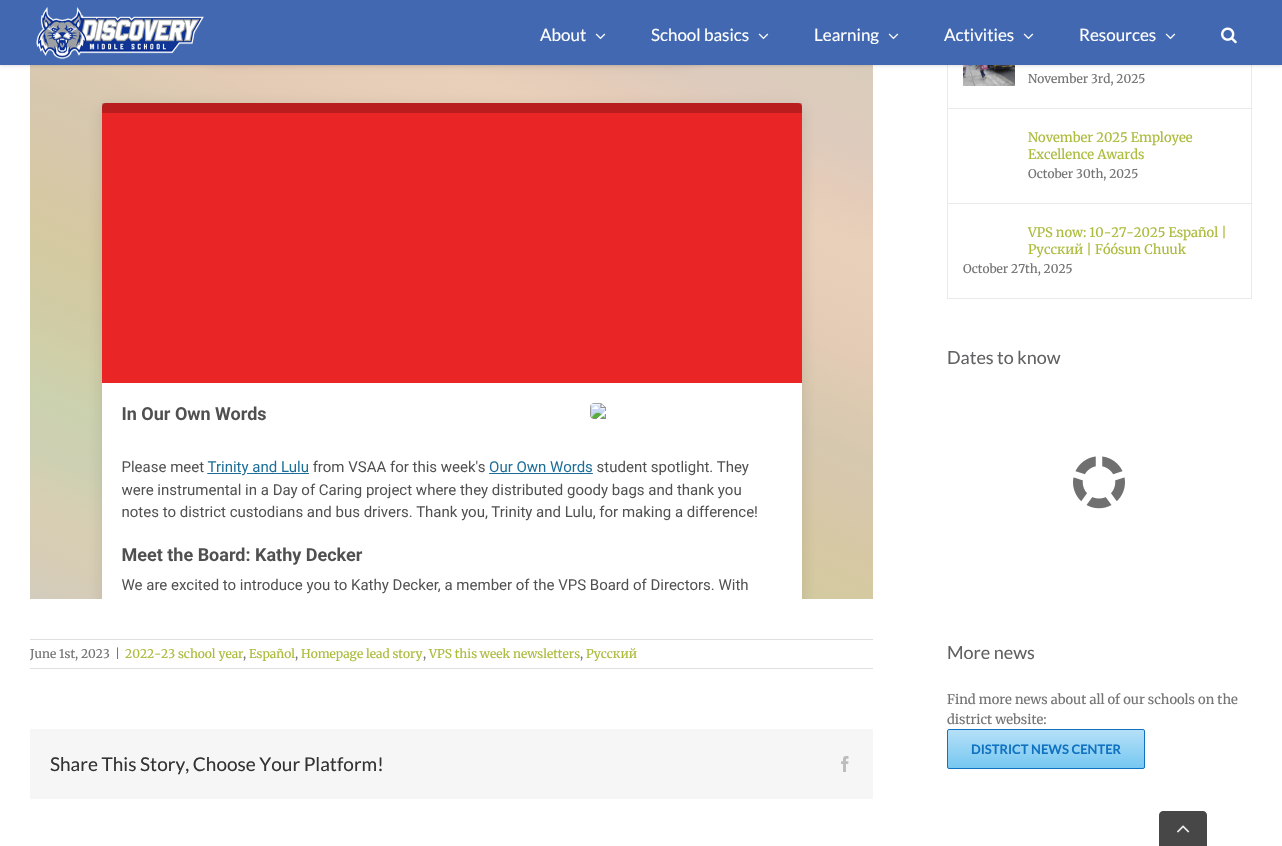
static SkFont makeFont(const char* family, int weight, float size, bool italic = false) {
  SkFontStyle style(weight, SkFontStyle::kNormal_Width,
    italic ? SkFontStyle::kItalic_Slant : SkFontStyle::kUpright_Slant);
  SkFont result(fontMgr->matchFamilyStyle(family, style), size);
  result.setSubpixel(true);
  return result;
}

static void text(SkCanvas* c, const char* s, float x, float y, const SkFont& font, SkColor color) {
  SkPaint ink(SkColor4f::FromColor(color));
  ink.setAntiAlias(true);
  c->drawString(s, x, y, font, ink);
}

static void box(SkCanvas* c, float l, float t, float r, float b, SkColor color) {
  SkPaint ink(SkColor4f::FromColor(color));
  ink.setAntiAlias(true);
  c->drawRect(SkRect::MakeLTRB(l, t, r, b), ink);
}

static void picture(SkCanvas* c, const char* path, float l, float t, float r, float b) {
  auto image = SkImages::DeferredFromEncodedData(SkData::MakeFromFileName(path));
  c->drawImageRect(image, SkRect::MakeLTRB(l, t, r, b), SkSamplingOptions());
}

void draw(SkCanvas* c) {
  SkPaint paint;
  paint.setAntiAlias(true);
  c->clear(0xffffffff);
  picture(c, "img_04.png", 30, 65, 873, 599);
  paint.setStyle(SkPaint::kStroke_Style);
  paint.setStrokeWidth(1);
  paint.setColor(0xffebeaea);
  c->drawRect(SkRect::MakeLTRB(947.5f, -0.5f, 1251.5f, 298.5f), paint);
  picture(c, "img_06.png", 963, 65, 1015, 86);
  paint.setStyle(SkPaint::kFill_Style);
  paint.setColor(0x1f000000);
  paint.setMaskFilter(SkMaskFilter::MakeBlur(kNormal_SkBlurStyle, 1.5f));
  c->drawRect(SkRect::MakeLTRB(0, 1, 1282, 66), paint);
  paint.setMaskFilter(nullptr);
  box(c, 0, 0, 1282, 65, 0xff4168b0);
  picture(c, "img_01.png", 36, 7, 204, 60);
  SkFont face1 = makeFont("Lato", 400, 17);
  text(c, "About", 540, 41, face1, 0xffffffff);
  picture(c, "img_02.png", 595, 33, 606, 40);
  text(c, "School basics", 651, 41, face1, 0xffffffff);
  picture(c, "img_02.png", 758, 33, 769, 40);
  text(c, "Learning", 814, 41, face1, 0xffffffff);
  picture(c, "img_02.png", 888, 33, 899, 40);
  text(c, "Activities", 944, 41, face1, 0xffffffff);
  picture(c, "img_02.png", 1023, 33, 1034, 40);
  text(c, "Resources", 1079, 41, face1, 0xffffffff);
  picture(c, "img_02.png", 1165, 33, 1176, 40);
  picture(c, "img_03.png", 1221, 27, 1237, 44);
  box(c, 30, 639, 873, 640, 0xffe0dede);
  box(c, 30, 668, 873, 669, 0xffe0dede);
  SkFont face2 = makeFont("Merriweather", 400, 12);
  text(c, "June 1st, 2023", 30, 658, face2, 0xff747474);
  text(c, "|", 115, 658, face2, 0xff747474);
  text(c, "2022-23 school year", 125, 658, face2, 0xffadbc3d);
  text(c, ",", 243, 658, face2, 0xff747474);
  text(c, "Español", 249, 658, face2, 0xffadbc3d);
  text(c, ",", 295, 658, face2, 0xff747474);
  text(c, "Homepage lead story", 301, 658, face2, 0xffadbc3d);
  text(c, ",", 423, 658, face2, 0xff747474);
  text(c, "VPS this week newsletters", 429, 658, face2, 0xffadbc3d);
  text(c, ",", 580, 658, face2, 0xff747474);
  text(c, "Русский", 586, 658, face2, 0xffadbc3d);
  box(c, 30, 729, 873, 799, 0xfff6f6f6);
  SkFont face3 = makeFont("Lato", 400, 19);
  text(c, "Share This Story, Choose Your Platform!", 50, 771, face3, 0xff333333);
  picture(c, "img_05.png", 841, 756, 849, 772);
  box(c, 948, 108, 1251, 109, 0xffebeaea);
  text(c, "November 3rd, 2025", 1028, 83, face2, 0xff747474);
  box(c, 948, 203, 1251, 204, 0xffebeaea);
  SkFont face4 = makeFont("Merriweather", 400, 13);
  text(c, "November 2025 Employee", 1028, 142, face4, 0xffadbc3d);
  text(c, "Excellence Awards", 1028, 159, face4, 0xffadbc3d);
  text(c, "October 30th, 2025", 1028, 178, face2, 0xff747474);
  text(c, "VPS now: 10-27-2025 Español |", 1028, 237, face4, 0xffadbc3d);
  text(c, "Русский | Fóósun Chuuk", 1028, 254, face4, 0xffadbc3d);
  text(c, "October 27th, 2025", 963, 273, face2, 0xff747474);
  SkFont face5 = makeFont("Lato", 400, 18);
  text(c, "Dates to know", 947, 364, face5, 0xff616163);
  picture(c, "img_07.png", 1073, 456, 1125, 509);
  text(c, "More news", 947, 659, face5, 0xff616163);
  text(c, "Find more news about all of our schools on the", 947, 704, face4, 0xff747474);
  text(c, "district website:", 947, 724, face4, 0xff747474);
  c->save();
  c->clipPath(SkPathBuilder().moveTo(949, 729).lineTo(1143, 729).cubicTo(1144, 729, 1145, 730, 1145, 731).lineTo(1145, 767).cubicTo(1145, 768, 1144, 769, 1143, 769).lineTo(949, 769).cubicTo(948, 769, 947, 768, 947, 767).lineTo(947, 731).cubicTo(947, 730, 948, 729, 949, 729).close().detach(), true);
  {
    const SkColor colors[] = {0xff76c7f1, 0xffb5e0f7};
    const float stops[] = {0, 1};
    const SkPoint ends[] = {{1046, 768}, {1046, 730}};
    paint.setShader(SkGradientShader::MakeLinear(ends, colors, stops, 2, SkTileMode::kClamp));
    paint.setAlpha(255);
  }
  c->drawRect(SkRect::MakeLTRB(947, 730, 1145, 768), paint);
  c->restore();
  paint.setStyle(SkPaint::kStroke_Style);
  paint.setShader(nullptr);
  paint.setColor(0xff1172c1);
  c->drawRoundRect(SkRect::MakeLTRB(947.5f, 729.5f, 1144.5f, 768.5f), 1.5f, 1.5f, paint);
  SkFont face6 = makeFont("Lato", 700, 13);
  text(c, "DISTRICT NEWS CENTER", 971, 754, face6, 0xff1172c1);
  paint.setStyle(SkPaint::kFill_Style);
  paint.setColor(0xff474747);
  c->drawPath(SkPathBuilder().moveTo(1163, 811).lineTo(1203, 811).cubicTo(1205, 811, 1207, 813, 1207, 815).lineTo(1207, 846).lineTo(1159, 846).lineTo(1159, 815).cubicTo(1159, 813, 1161, 811, 1163, 811).close().detach(), paint);
  picture(c, "img_08.png", 1177, 825, 1190, 833);
}
